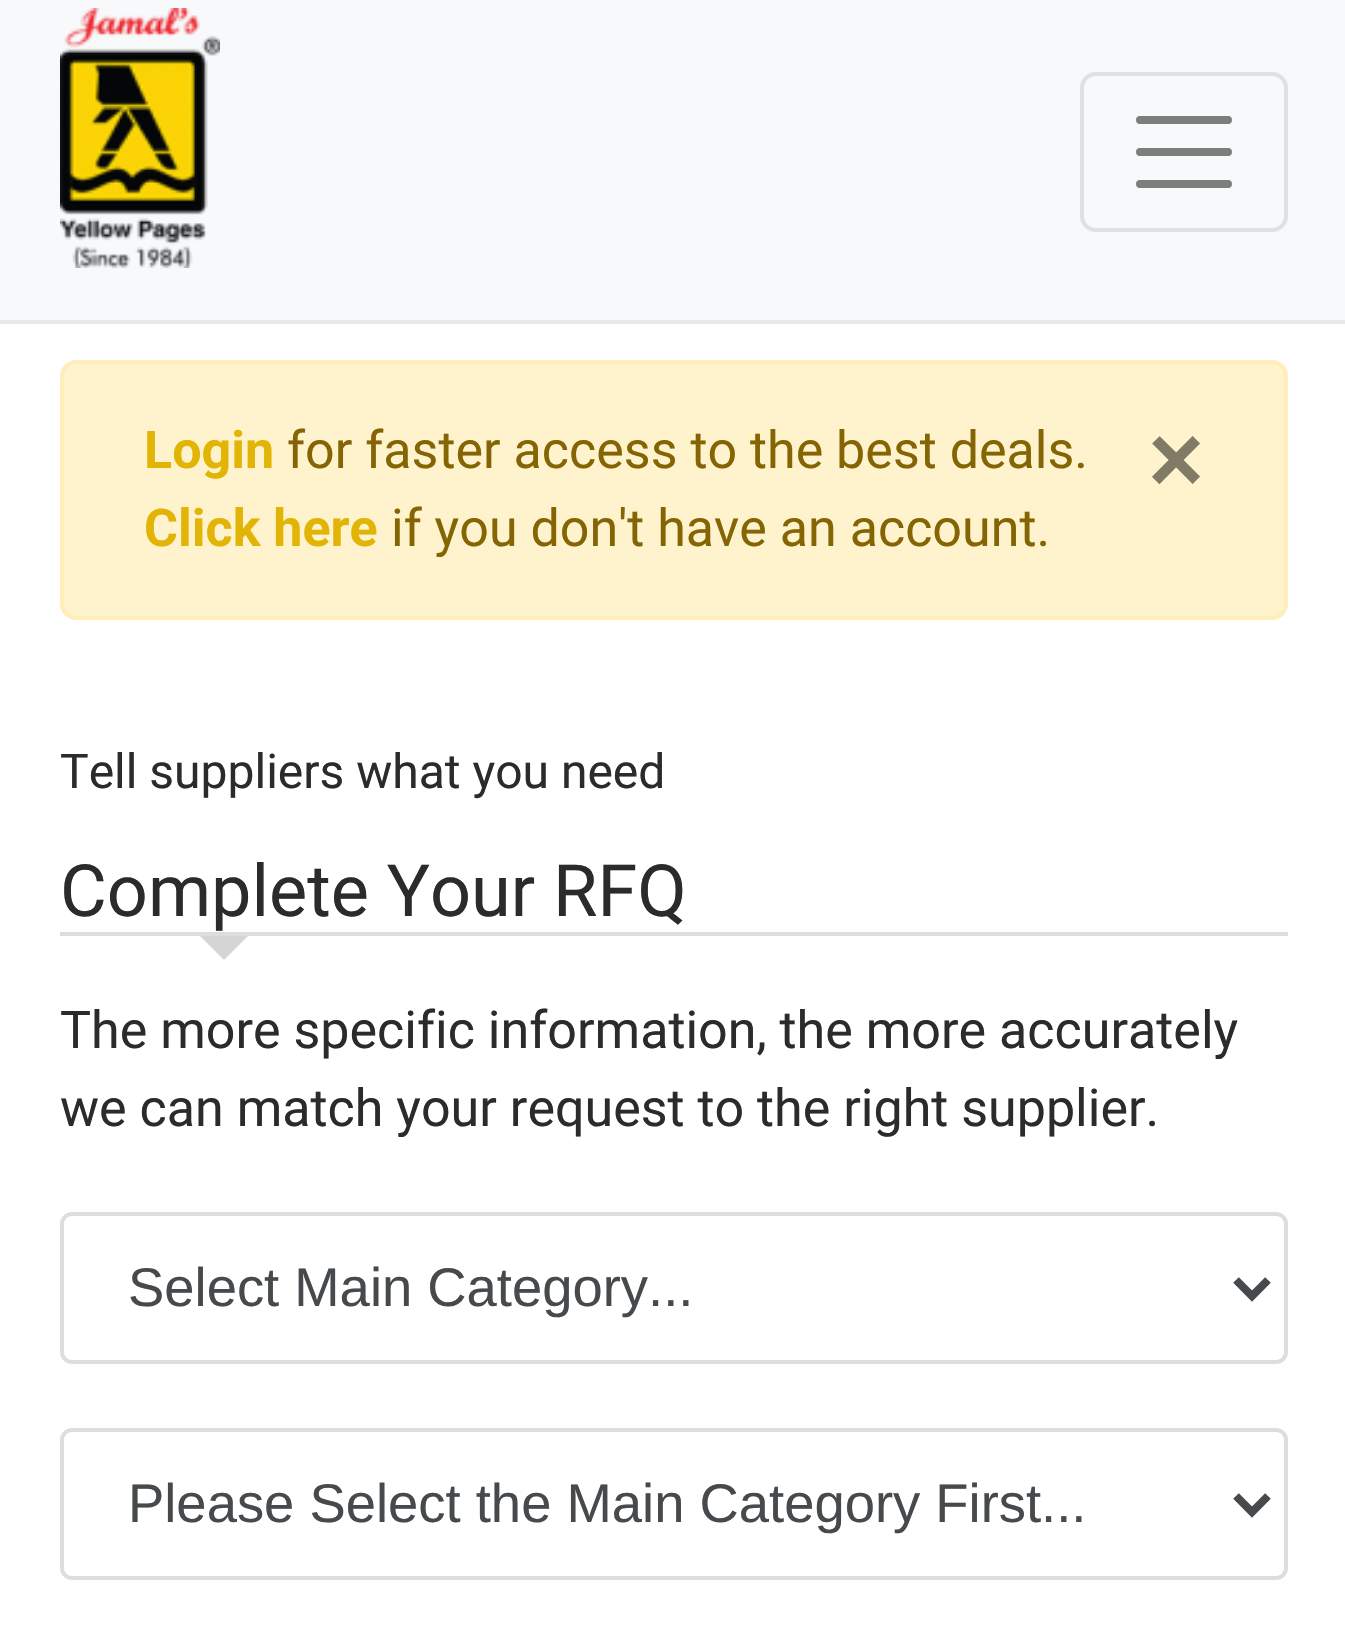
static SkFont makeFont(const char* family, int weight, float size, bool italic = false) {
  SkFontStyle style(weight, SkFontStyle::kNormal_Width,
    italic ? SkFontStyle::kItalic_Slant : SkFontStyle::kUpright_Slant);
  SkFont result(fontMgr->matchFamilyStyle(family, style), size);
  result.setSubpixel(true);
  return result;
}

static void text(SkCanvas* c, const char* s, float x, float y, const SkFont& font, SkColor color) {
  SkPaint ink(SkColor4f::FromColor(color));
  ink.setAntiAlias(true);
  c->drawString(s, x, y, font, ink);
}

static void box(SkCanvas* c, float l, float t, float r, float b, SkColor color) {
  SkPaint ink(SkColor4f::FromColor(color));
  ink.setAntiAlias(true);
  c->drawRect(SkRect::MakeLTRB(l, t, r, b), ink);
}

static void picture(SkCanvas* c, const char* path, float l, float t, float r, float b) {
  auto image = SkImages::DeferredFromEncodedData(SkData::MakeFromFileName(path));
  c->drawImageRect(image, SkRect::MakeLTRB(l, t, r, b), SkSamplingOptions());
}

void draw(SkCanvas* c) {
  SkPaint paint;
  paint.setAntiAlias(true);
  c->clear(0xffffffff);
  box(c, 0, 0, 1345, 320, 0xfff8f9fa);
  box(c, 0, 320, 1345, 324, 0xffe8e8e8);
  picture(c, "img_01.png", 60, 8, 220, 268);
  paint.setStyle(SkPaint::kStroke_Style);
  paint.setStrokeWidth(4);
  paint.setColor(0xffdfe0e1);
  c->drawRoundRect(SkRect::MakeLTRB(1082, 74, 1286, 230), 14, 14, paint);
  paint.setStrokeWidth(8);
  paint.setStrokeCap(SkPaint::kRound_Cap);
  paint.setColor(0xff7c7d7d);
  c->drawPath(SkPathBuilder().moveTo(1140, 120).lineTo(1228, 120).moveTo(1140, 152).lineTo(1228, 152).moveTo(1140, 184).lineTo(1228, 184).detach(), paint);
  paint.setStyle(SkPaint::kFill_Style);
  paint.setColor(0xfffff3cd);
  c->drawRoundRect(SkRect::MakeLTRB(62, 362, 1286, 618), 14, 14, paint);
  paint.setStyle(SkPaint::kStroke_Style);
  paint.setStrokeWidth(4);
  paint.setStrokeCap(SkPaint::kButt_Cap);
  paint.setColor(0xffffeeba);
  c->drawRoundRect(SkRect::MakeLTRB(62, 362, 1286, 618), 14, 14, paint);
  SkFont face1 = makeFont("Roboto", 700, 52);
  text(c, "Login", 144, 468, face1, 0xffe2b405);
  SkFont face2 = makeFont("Roboto", 400, 52);
  text(c, "for faster access to the best deals.", 287, 468, face2, 0xff856404);
  SkFont face3 = makeFont("Liberation Sans", 700, 96);
  text(c, "×", 1148, 492, face3, 0xff807a67);
  text(c, "Click here", 144, 546, face1, 0xffe2b405);
  text(c, "if you don't have an account.", 391, 546, face2, 0xff856404);
  SkFont face4 = makeFont("Roboto", 400, 48);
  text(c, "Tell suppliers what you need", 60, 788, face4, 0xff292b2c);
  box(c, 60, 932, 1288, 936, 0xffdddddd);
  SkFont face5 = makeFont("Roboto", 400, 72);
  text(c, "Complete Your RFQ", 60, 916, face5, 0xff292b2c);
  paint.setStyle(SkPaint::kFill_Style);
  paint.setColor(0xffd7d5d5);
  c->drawPath(SkPathBuilder().moveTo(200, 936).lineTo(248, 936).lineTo(224, 960).close().detach(), paint);
  text(c, "The more specific information, the more accurately", 60, 1048, face2, 0xff292b2c);
  text(c, "we can match your request to the right supplier.", 60, 1126, face2, 0xff292b2c);
  paint.setStyle(SkPaint::kStroke_Style);
  paint.setColor(0xffdddddd);
  c->drawRoundRect(SkRect::MakeLTRB(62, 1214, 1286, 1362), 10, 10, paint);
  paint.setStrokeWidth(8);
  paint.setColor(0xff464a4c);
  c->drawPath(SkPathBuilder().moveTo(1236, 1280).lineTo(1252, 1296).lineTo(1268, 1280).detach(), paint);
  SkFont face6 = makeFont("Liberation Sans", 400, 54.4f);
  text(c, "Select Main Category...", 128, 1306, face6, 0xff464a4c);
  paint.setStrokeWidth(4);
  paint.setColor(0xffdddddd);
  c->drawRoundRect(SkRect::MakeLTRB(62, 1430, 1286, 1578), 10, 10, paint);
  paint.setStrokeWidth(8);
  paint.setColor(0xff464a4c);
  c->drawPath(SkPathBuilder().moveTo(1236, 1496).lineTo(1252, 1512).lineTo(1268, 1496).detach(), paint);
  text(c, "Please Select the Main Category First...", 128, 1522, face6, 0xff464a4c);
}
